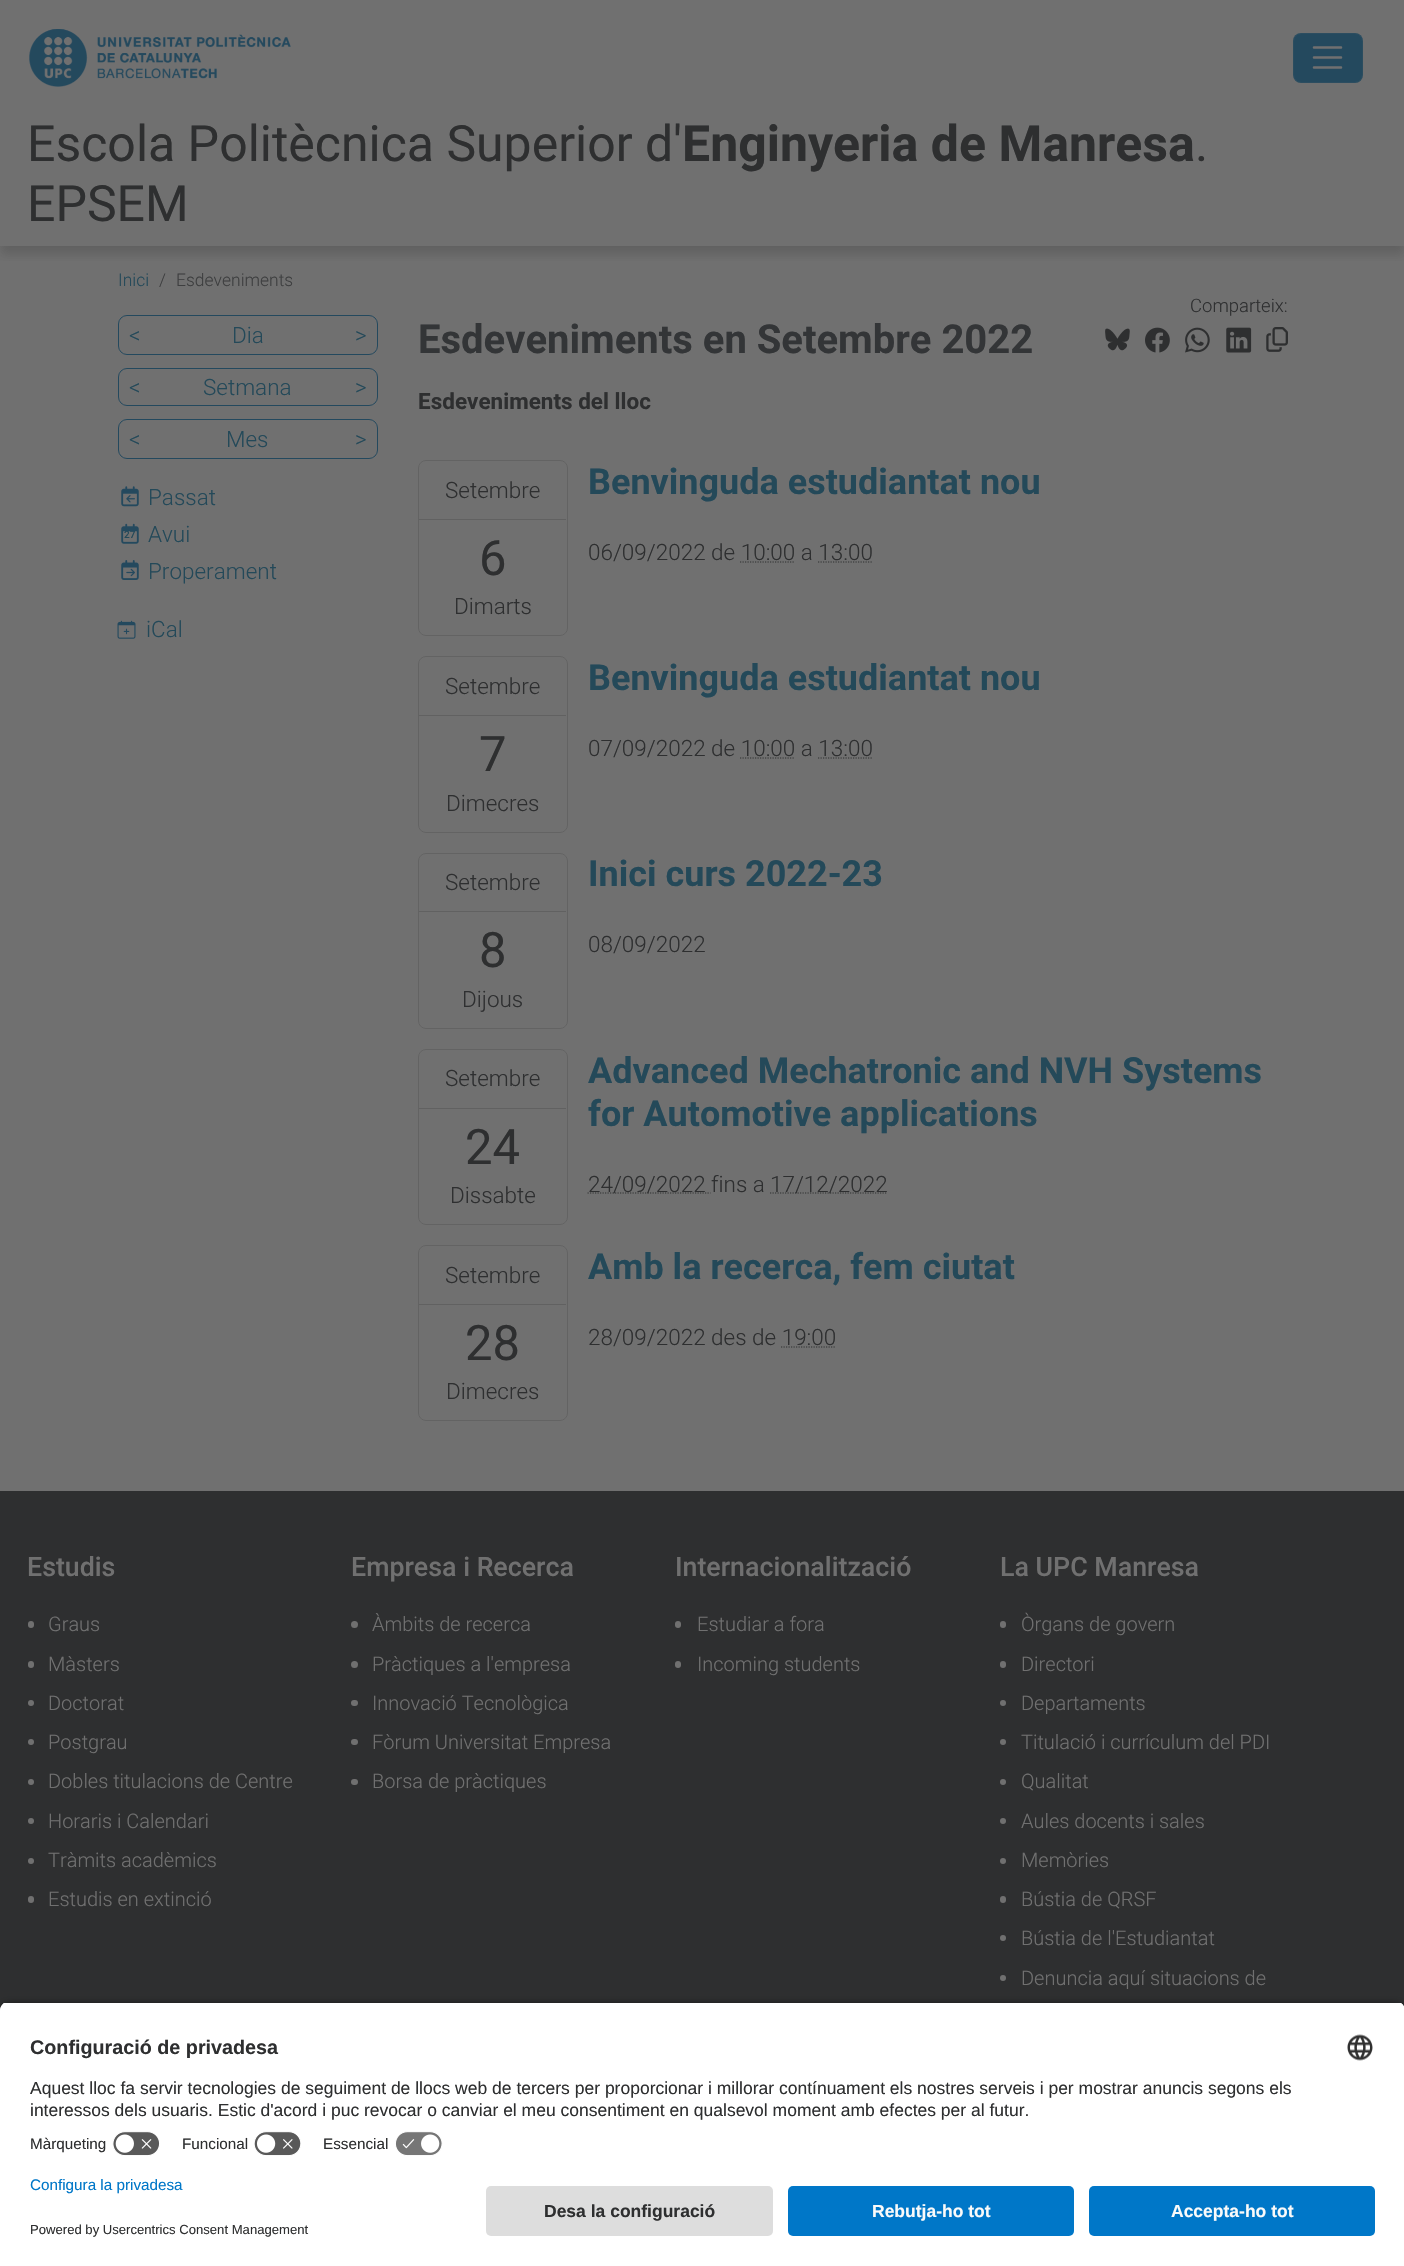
static SkFont makeFont(const char* family, int weight, float size, bool italic = false) {
  SkFontStyle style(weight, SkFontStyle::kNormal_Width,
    italic ? SkFontStyle::kItalic_Slant : SkFontStyle::kUpright_Slant);
  SkFont result(fontMgr->matchFamilyStyle(family, style), size);
  result.setSubpixel(true);
  return result;
}

static void text(SkCanvas* c, const char* s, float x, float y, const SkFont& font, SkColor color) {
  SkPaint ink(SkColor4f::FromColor(color));
  ink.setAntiAlias(true);
  c->drawString(s, x, y, font, ink);
}

static void box(SkCanvas* c, float l, float t, float r, float b, SkColor color) {
  SkPaint ink(SkColor4f::FromColor(color));
  ink.setAntiAlias(true);
  c->drawRect(SkRect::MakeLTRB(l, t, r, b), ink);
}

static void roundBox(SkCanvas* c, float l, float t, float r, float b, float radius, SkColor color) {
  SkPaint ink(SkColor4f::FromColor(color));
  ink.setAntiAlias(true);
  c->drawRoundRect(SkRect::MakeLTRB(l, t, r, b), radius, radius, ink);
}

static void picture(SkCanvas* c, const char* path, float l, float t, float r, float b) {
  auto image = SkImages::DeferredFromEncodedData(SkData::MakeFromFileName(path));
  c->drawImageRect(image, SkRect::MakeLTRB(l, t, r, b), SkSamplingOptions());
}

void draw(SkCanvas* c) {
  SkPaint paint;
  paint.setAntiAlias(true);
  c->clear(0xff707070);
  picture(c, "img_01.png", 29, 29, 291, 87);
  roundBox(c, 1293, 33, 1363, 83, 8, 0xff24495e);
  paint.setStyle(SkPaint::kStroke_Style);
  paint.setStrokeWidth(1);
  paint.setColor(0x1a707070);
  c->drawRoundRect(SkRect::MakeLTRB(1293.5f, 33.5f, 1362.5f, 82.5f), 7.5f, 7.5f, paint);
  paint.setStrokeWidth(2.5f);
  paint.setStrokeCap(SkPaint::kRound_Cap);
  paint.setColor(0xff707070);
  c->drawPath(SkPathBuilder().moveTo(1314, 47.5f).lineTo(1341, 47.5f).moveTo(1314, 57.5f).lineTo(1341, 57.5f).moveTo(1314, 67.5f).lineTo(1341, 67.5f).detach(), paint);
  c->save();
  c->clipRect(SkRect::MakeLTRB(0, 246, 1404, 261));
  paint.setStyle(SkPaint::kFill_Style);
  paint.setColor(0x33242424);
  paint.setMaskFilter(SkMaskFilter::MakeBlur(kNormal_SkBlurStyle, 5));
  c->drawRect(SkRect::MakeLTRB(0, 124, 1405, 255), paint);
  paint.setMaskFilter(nullptr);
  c->restore();
  SkFont face1 = makeFont("Roboto", 400, 50);
  text(c, "Escola Politècnica Superior d'", 27, 161, face1, 0xff2e2f30);
  SkFont face2 = makeFont("Roboto", 700, 50);
  text(c, "Enginyeria de Manresa", 682, 161, face2, 0xff2e2f30);
  text(c, ".", 1195, 161, face1, 0xff2e2f30);
  text(c, "EPSEM", 27, 221, face1, 0xff2e2f30);
  SkFont face3 = makeFont("Roboto", 300, 17.5f);
  text(c, "Inici", 118, 286, face3, 0xff244959);
  text(c, "/", 159, 286, face3, 0xff3e3f40);
  text(c, "Esdeveniments", 176, 286, face3, 0xff3e3f40);
  paint.setStyle(SkPaint::kStroke_Style);
  paint.setStrokeWidth(1);
  paint.setStrokeCap(SkPaint::kButt_Cap);
  paint.setColor(0xff24495e);
  c->drawRoundRect(SkRect::MakeLTRB(118.5f, 315.5f, 377.5f, 354.5f), 8.5f, 8.5f, paint);
  SkFont face4 = makeFont("Roboto", 300, 22.5f);
  text(c, "<", 129, 343, face4, 0xff244959);
  text(c, "Dia", 232, 343, face4, 0xff244959);
  text(c, ">", 355, 343, face4, 0xff244959);
  c->drawRoundRect(SkRect::MakeLTRB(118.5f, 368.5f, 377.5f, 405.5f), 8.5f, 8.5f, paint);
  text(c, "<", 129, 395, face4, 0xff244959);
  text(c, "Setmana", 203, 395, face4, 0xff244959);
  text(c, ">", 355, 395, face4, 0xff244959);
  c->drawRoundRect(SkRect::MakeLTRB(118.5f, 419.5f, 377.5f, 458.5f), 8.5f, 8.5f, paint);
  text(c, "<", 129, 447, face4, 0xff244959);
  text(c, "Mes", 226, 447, face4, 0xff244959);
  text(c, ">", 355, 447, face4, 0xff244959);
  picture(c, "img_02.png", 121, 486, 139, 507);
  picture(c, "img_03.png", 126, 495, 135, 503);
  text(c, "Passat", 148, 505, face4, 0xff244959);
  SkFont face5 = makeFont("Roboto", 500, 10);
  text(c, "27", 124, 538, face5, 0xff244959);
  picture(c, "img_04.png", 121, 523, 139, 544);
  text(c, "Avui", 148, 542, face4, 0xff244959);
  picture(c, "img_05.png", 121, 560, 139, 580);
  picture(c, "img_06.png", 126, 568, 135, 577);
  text(c, "Properament", 148, 579, face4, 0xff244959);
  picture(c, "img_07.png", 117, 620, 136, 639);
  text(c, "iCal", 146, 637, face4, 0xff244959);
  SkFont face6 = makeFont("Roboto", 300, 18.5f);
  text(c, "Comparteix:", 1190, 312, face6, 0xff2e2f30);
  picture(c, "img_08.png", 1105, 328, 1130, 351);
  picture(c, "img_09.png", 1145, 327, 1170, 353);
  picture(c, "img_10.png", 1185, 327, 1210, 353);
  picture(c, "img_11.png", 1226, 327, 1252, 353);
  picture(c, "img_12.png", 1266, 327, 1288, 352);
  SkFont face7 = makeFont("Roboto", 700, 40);
  text(c, "Esdeveniments en Setembre 2022", 418, 353, face7, 0xff333537);
  SkFont face8 = makeFont("Roboto", 700, 22.5f);
  text(c, "Esdeveniments del lloc", 418, 409, face8, 0xff2e2f30);
  paint.setColor(0xff636363);
  c->drawRoundRect(SkRect::MakeLTRB(418.5f, 460.5f, 567.5f, 635.5f), 7.5f, 7.5f, paint);
  box(c, 419, 519, 566, 520, 0xff616161);
  text(c, "Setembre", 445, 498, face4, 0xff2e2f30);
  SkFont face9 = makeFont("Roboto", 400, 49);
  text(c, "6", 479, 575, face9, 0xff2e2f30);
  text(c, "Dimarts", 454, 614, face4, 0xff2e2f30);
  SkFont face10 = makeFont("Roboto", 700, 36);
  text(c, "Benvinguda estudiantat nou", 588, 494, face10, 0xff244959);
  text(c, "06/09/2022 de 10:00 a 13:00", 588, 560, face4, 0xff2e2f30);
  paint.setStrokeWidth(1.2f);
  paint.setColor(0xff2e2f30);
  paint.setPathEffect(SkDashPathEffect::Make({{1.25f, 1.25f}}, 0));
  c->drawPath(SkPathBuilder().moveTo(740, 562).lineTo(795, 562).detach(), paint);
  paint.setPathEffect(nullptr);
  paint.setPathEffect(SkDashPathEffect::Make({{1.25f, 1.25f}}, 0));
  c->drawPath(SkPathBuilder().moveTo(818, 562).lineTo(872.5f, 562).detach(), paint);
  paint.setPathEffect(nullptr);
  paint.setStrokeWidth(1);
  paint.setColor(0xff636363);
  c->drawRoundRect(SkRect::MakeLTRB(418.5f, 656.5f, 567.5f, 832.5f), 7.5f, 7.5f, paint);
  box(c, 419, 715, 566, 716, 0xff616161);
  text(c, "Setembre", 445, 694, face4, 0xff2e2f30);
  text(c, "7", 479, 771, face9, 0xff2e2f30);
  text(c, "Dimecres", 446, 811, face4, 0xff2e2f30);
  text(c, "Benvinguda estudiantat nou", 588, 690, face10, 0xff244959);
  text(c, "07/09/2022 de 10:00 a 13:00", 588, 756, face4, 0xff2e2f30);
  paint.setStrokeWidth(1.2f);
  paint.setColor(0xff2e2f30);
  paint.setPathEffect(SkDashPathEffect::Make({{1.25f, 1.25f}}, 0));
  c->drawPath(SkPathBuilder().moveTo(740, 758).lineTo(795, 758).detach(), paint);
  paint.setPathEffect(nullptr);
  paint.setPathEffect(SkDashPathEffect::Make({{1.25f, 1.25f}}, 0));
  c->drawPath(SkPathBuilder().moveTo(818, 758).lineTo(872.5f, 758).detach(), paint);
  paint.setPathEffect(nullptr);
  paint.setStrokeWidth(1);
  paint.setColor(0xff636363);
  c->drawRoundRect(SkRect::MakeLTRB(418.5f, 853.5f, 567.5f, 1028.5f), 7.5f, 7.5f, paint);
  box(c, 419, 911, 566, 912, 0xff616161);
  text(c, "Setembre", 445, 890, face4, 0xff2e2f30);
  text(c, "8", 479, 967, face9, 0xff2e2f30);
  text(c, "Dijous", 462, 1007, face4, 0xff2e2f30);
  text(c, "Inici curs 2022-23", 588, 886, face10, 0xff244959);
  text(c, "08/09/2022", 588, 952, face4, 0xff2e2f30);
  c->drawRoundRect(SkRect::MakeLTRB(418.5f, 1049.5f, 567.5f, 1224.5f), 7.5f, 7.5f, paint);
  box(c, 419, 1108, 566, 1109, 0xff616161);
  text(c, "Setembre", 445, 1086, face4, 0xff2e2f30);
  text(c, "24", 465, 1164, face9, 0xff2e2f30);
  text(c, "Dissabte", 450, 1203, face4, 0xff2e2f30);
  text(c, "Advanced Mechatronic and NVH Systems", 588, 1083, face10, 0xff244959);
  text(c, "for Automotive applications", 588, 1126, face10, 0xff244959);
  paint.setStrokeWidth(1.2f);
  paint.setColor(0xff2e2f30);
  paint.setPathEffect(SkDashPathEffect::Make({{1.25f, 1.25f}}, 0));
  c->drawPath(SkPathBuilder().moveTo(587.5f, 1193).lineTo(710.5f, 1193).detach(), paint);
  paint.setPathEffect(nullptr);
  text(c, "24/09/2022 fins a", 588, 1192, face4, 0xff2e2f30);
  paint.setPathEffect(SkDashPathEffect::Make({{1.25f, 1.25f}}, 0));
  c->drawPath(SkPathBuilder().moveTo(770, 1193).lineTo(887.5f, 1193).detach(), paint);
  paint.setPathEffect(nullptr);
  text(c, "17/12/2022", 770, 1192, face4, 0xff2e2f30);
  paint.setStrokeWidth(1);
  paint.setColor(0xff636363);
  c->drawRoundRect(SkRect::MakeLTRB(418.5f, 1245.5f, 567.5f, 1420.5f), 7.5f, 7.5f, paint);
  box(c, 419, 1304, 566, 1305, 0xff616161);
  text(c, "Setembre", 445, 1283, face4, 0xff2e2f30);
  text(c, "28", 465, 1360, face9, 0xff2e2f30);
  text(c, "Dimecres", 446, 1399, face4, 0xff2e2f30);
  text(c, "Amb la recerca, fem ciutat", 588, 1279, face10, 0xff244959);
  text(c, "28/09/2022 des de 19:00", 588, 1345, face4, 0xff2e2f30);
  paint.setStrokeWidth(1.2f);
  paint.setColor(0xff2e2f30);
  paint.setPathEffect(SkDashPathEffect::Make({{1.25f, 1.25f}}, 0));
  c->drawPath(SkPathBuilder().moveTo(781, 1347).lineTo(836, 1347).detach(), paint);
  paint.setPathEffect(nullptr);
  box(c, 0, 1491, 1404, 2011, 0xff2e2f30);
  SkFont face11 = makeFont("Roboto", 500, 26.75f);
  text(c, "Estudis", 27, 1576, face11, 0xff707070);
  roundBox(c, 28, 1621, 34, 1628, 3, 0xff707070);
  SkFont face12 = makeFont("Roboto", 300, 20);
  text(c, "Graus", 48, 1631, face12, 0xff707070);
  roundBox(c, 28, 1661, 34, 1668, 3, 0xff707070);
  text(c, "Màsters", 48, 1671, face12, 0xff707070);
  paint.setStyle(SkPaint::kFill_Style);
  paint.setColor(0xff707070);
  c->drawCircle(31, 1703, 3, paint);
  text(c, "Doctorat", 48, 1710, face12, 0xff707070);
  c->drawCircle(31, 1742, 3, paint);
  text(c, "Postgrau", 48, 1749, face12, 0xff707070);
  c->drawCircle(31, 1782, 3, paint);
  text(c, "Dobles titulacions de Centre", 48, 1788, face12, 0xff707070);
  c->drawCircle(31, 1821, 3, paint);
  text(c, "Horaris i Calendari", 48, 1828, face12, 0xff707070);
  c->drawCircle(31, 1861, 3, paint);
  text(c, "Tràmits acadèmics", 48, 1867, face12, 0xff707070);
  roundBox(c, 28, 1896, 34, 1903, 3, 0xff707070);
  text(c, "Estudis en extinció", 48, 1906, face12, 0xff707070);
  text(c, "Empresa i Recerca", 351, 1576, face11, 0xff707070);
  c->drawCircle(354.5f, 1624.5f, 3.5f, paint);
  text(c, "Àmbits de recerca", 372, 1631, face12, 0xff707070);
  c->drawCircle(354.5f, 1664.5f, 3.5f, paint);
  text(c, "Pràctiques a l'empresa", 372, 1671, face12, 0xff707070);
  roundBox(c, 351, 1700, 358, 1706, 3, 0xff707070);
  text(c, "Innovació Tecnològica", 372, 1710, face12, 0xff707070);
  roundBox(c, 351, 1739, 358, 1745, 3, 0xff707070);
  text(c, "Fòrum Universitat Empresa", 372, 1749, face12, 0xff707070);
  roundBox(c, 351, 1779, 358, 1785, 3, 0xff707070);
  text(c, "Borsa de pràctiques", 372, 1788, face12, 0xff707070);
  text(c, "Internacionalització", 675, 1576, face11, 0xff707070);
  roundBox(c, 675, 1621, 681, 1628, 3, 0xff707070);
  text(c, "Estudiar a fora", 697, 1631, face12, 0xff707070);
  roundBox(c, 675, 1661, 681, 1668, 3, 0xff707070);
  text(c, "Incoming students", 697, 1671, face12, 0xff707070);
  text(c, "La UPC Manresa", 1000, 1576, face11, 0xff707070);
  roundBox(c, 1000, 1621, 1006, 1628, 3, 0xff707070);
  text(c, "Òrgans de govern", 1021, 1631, face12, 0xff707070);
  roundBox(c, 1000, 1661, 1006, 1668, 3, 0xff707070);
  text(c, "Directori", 1021, 1671, face12, 0xff707070);
  c->drawCircle(1003, 1703, 3, paint);
  text(c, "Departaments", 1021, 1710, face12, 0xff707070);
  c->drawCircle(1003, 1742, 3, paint);
  text(c, "Titulació i currículum del PDI", 1021, 1749, face12, 0xff707070);
  c->drawCircle(1003, 1782, 3, paint);
  text(c, "Qualitat", 1021, 1788, face12, 0xff707070);
  c->drawCircle(1003, 1821, 3, paint);
  text(c, "Aules docents i sales", 1021, 1828, face12, 0xff707070);
  c->drawCircle(1003, 1861, 3, paint);
  text(c, "Memòries", 1021, 1867, face12, 0xff707070);
  roundBox(c, 1000, 1896, 1006, 1903, 3, 0xff707070);
  text(c, "Bústia de QRSF", 1021, 1906, face12, 0xff707070);
  c->drawCircle(1003, 1938, 3, paint);
  text(c, "Bústia de l'Estudiantat", 1021, 1945, face12, 0xff707070);
  c->drawCircle(1003, 1978, 3, paint);
  text(c, "Denuncia aquí situacions de", 1021, 1985, face12, 0xff707070);
  paint.setColor(0xcc000000);
  paint.setMaskFilter(SkMaskFilter::MakeBlur(kNormal_SkBlurStyle, 4.5f));
  c->drawRoundRect(SkRect::MakeLTRB(0, 2005, 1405, 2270), 10, 10, paint);
  paint.setMaskFilter(nullptr);
  c->save();
  c->clipPath(SkPathBuilder().moveTo(10, 2001).lineTo(1395, 2001).cubicTo(1400.5f, 2001, 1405, 2005.5f, 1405, 2011).lineTo(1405, 2176).lineTo(0, 2176).lineTo(0, 2011).cubicTo(0, 2005.5f, 4.5f, 2001, 10, 2001).close().detach(), true);
  box(c, 0, 2003, 1404, 2176, 0xffffffff);
  box(c, 0, 2003, 1404, 2126, 0xffffffff);
  c->restore();
  SkFont face13 = makeFont("Liberation Sans", 700, 19.75f);
  text(c, "Configuració de privadesa", 30, 2054, face13, 0xff2e2f30);
  picture(c, "img_13.png", 1347, 2034, 1373, 2061);
  SkFont face14 = makeFont("Liberation Sans", 400, 17.5f);
  text(c, "Aquest lloc fa servir tecnologies de seguiment de llocs web de tercers per proporcionar i millorar contínuament els nostres serveis i per mostrar anuncis segons els", 30, 2094, face14, 0xff2e2f30);
  text(c, "interessos dels usuaris. Estic d'acord i puc revocar o canviar el meu consentiment en qualsevol moment amb efectes per al futur.", 30, 2116, face14, 0xff2e2f30);
  SkFont face15 = makeFont("Liberation Sans", 400, 15.25f);
  text(c, "Màrqueting", 30, 2149, face15, 0xff2e2f30);
  picture(c, "img_14.png", 112, 2131, 160, 2156);
  text(c, "Funcional", 182, 2149, face15, 0xff2e2f30);
  picture(c, "img_15.png", 254, 2131, 301, 2156);
  text(c, "Essencial", 323, 2149, face15, 0xff2e2f30);
  picture(c, "img_16.png", 395, 2131, 443, 2156);
  box(c, 0, 2176, 1404, 2266, 0xffffffff);
  text(c, "Configura la privadesa", 30, 2190, face15, 0xff0077c8);
  SkFont face16 = makeFont("Liberation Sans", 400, 13.1f);
  text(c, "Powered by Usercentrics Consent Management", 30, 2234, face16, 0xff2e2f30);
  roundBox(c, 486, 2186, 773, 2236, 5, 0xffdddddd);
  SkFont face17 = makeFont("Liberation Sans", 700, 17.5f);
  text(c, "Desa la configuració", 544, 2217, face17, 0xff2e2f30);
  roundBox(c, 788, 2186, 1074, 2236, 5, 0xff0077c8);
  text(c, "Rebutja-ho tot", 872, 2217, face17, 0xfffafafa);
  roundBox(c, 1089, 2186, 1375, 2236, 5, 0xff0077c8);
  text(c, "Accepta-ho tot", 1171, 2217, face17, 0xfffafafa);
}
